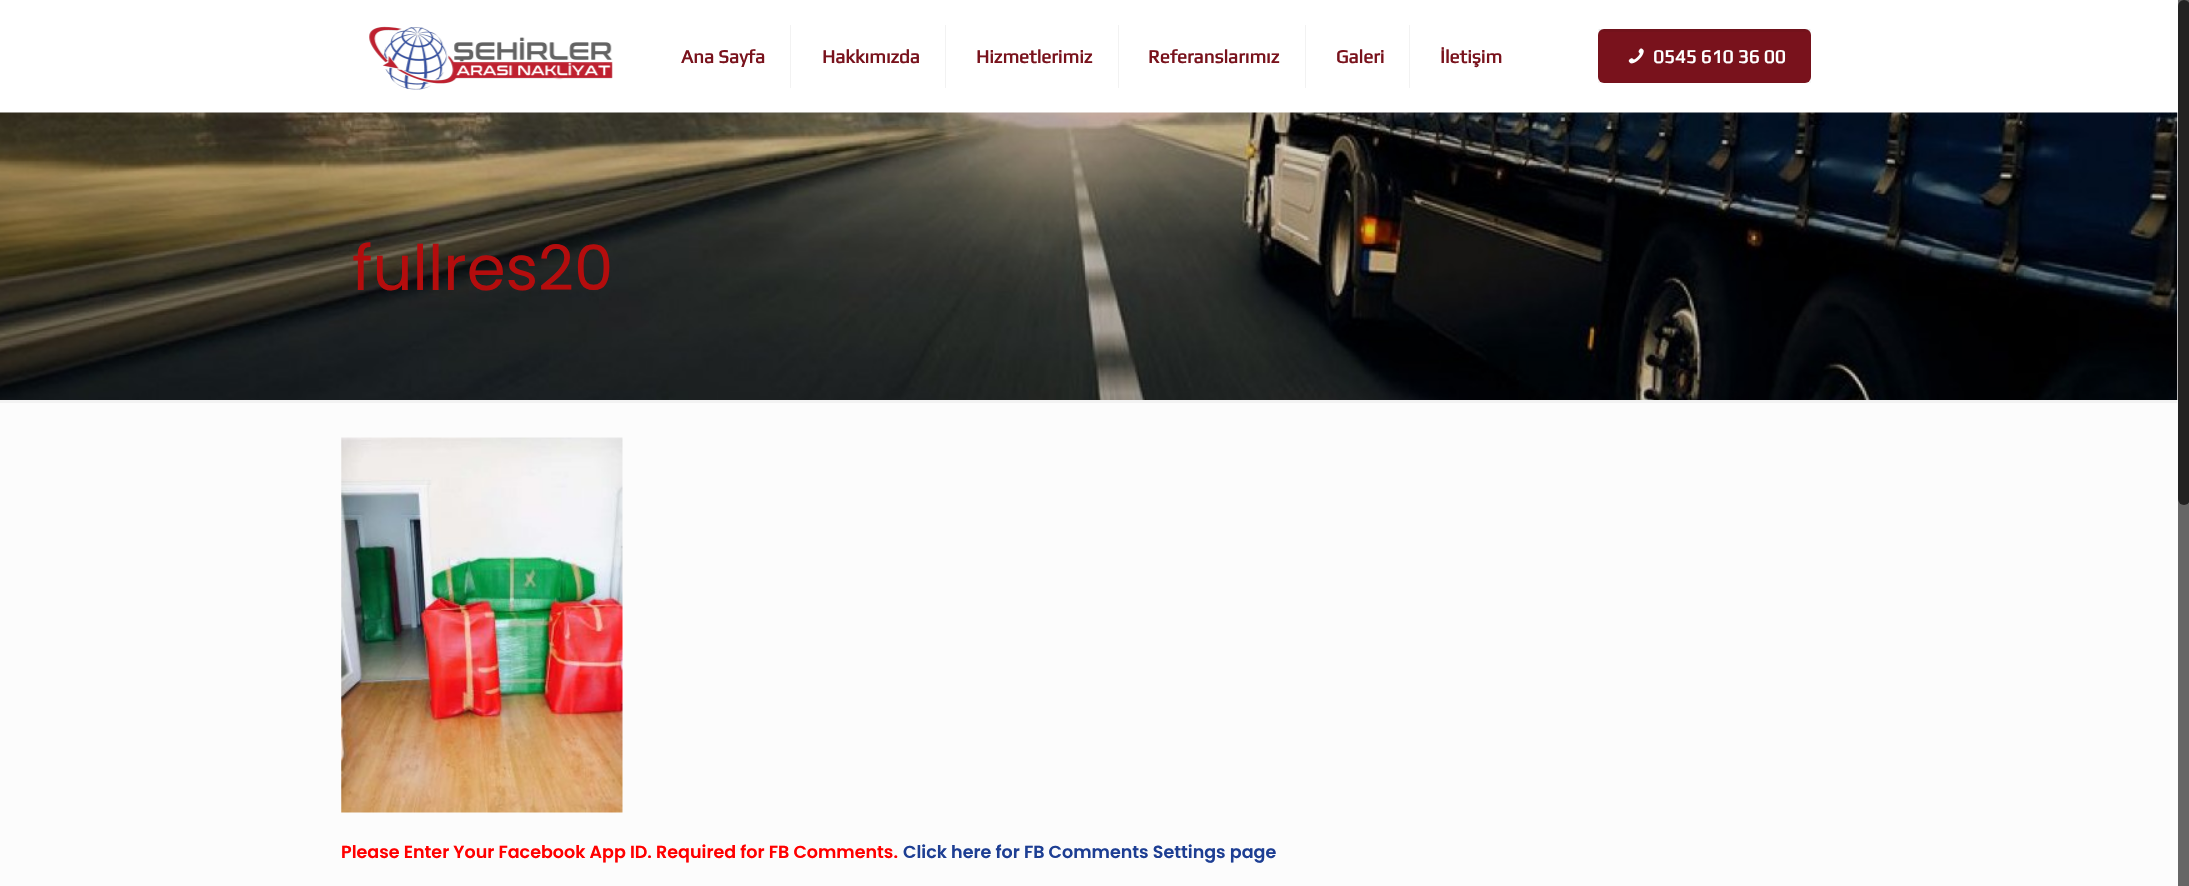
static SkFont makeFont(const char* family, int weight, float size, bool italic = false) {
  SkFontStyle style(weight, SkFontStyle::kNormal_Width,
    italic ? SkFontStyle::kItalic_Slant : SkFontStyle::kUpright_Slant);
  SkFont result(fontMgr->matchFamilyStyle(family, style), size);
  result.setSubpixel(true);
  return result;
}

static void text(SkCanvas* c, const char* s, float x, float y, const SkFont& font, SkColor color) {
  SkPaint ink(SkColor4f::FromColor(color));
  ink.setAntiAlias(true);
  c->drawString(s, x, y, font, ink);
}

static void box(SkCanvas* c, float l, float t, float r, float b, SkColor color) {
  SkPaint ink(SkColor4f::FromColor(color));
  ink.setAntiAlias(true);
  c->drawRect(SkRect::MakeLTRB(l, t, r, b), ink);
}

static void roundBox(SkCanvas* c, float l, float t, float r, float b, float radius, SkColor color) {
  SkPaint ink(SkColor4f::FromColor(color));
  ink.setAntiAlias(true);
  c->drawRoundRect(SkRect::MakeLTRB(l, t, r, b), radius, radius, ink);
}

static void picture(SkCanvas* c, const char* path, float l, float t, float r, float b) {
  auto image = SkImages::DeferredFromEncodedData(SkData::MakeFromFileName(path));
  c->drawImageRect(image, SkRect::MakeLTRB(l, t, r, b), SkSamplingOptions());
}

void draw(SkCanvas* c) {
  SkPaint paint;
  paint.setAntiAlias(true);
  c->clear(0xfffcfcfc);
  box(c, 0, 0, 2178, 113, 0xffffffff);
  picture(c, "img_01.png", 369, 26, 613, 90);
  box(c, 790, 25, 791, 88, 0xfff2f2f2);
  SkFont face1 = makeFont("Play", 700, 18.75f);
  text(c, "Ana Sayfa", 681, 63, face1, 0xff79121c);
  box(c, 945, 25, 946, 88, 0xfff2f2f2);
  text(c, "Hakkımızda", 822, 63, face1, 0xff79121c);
  box(c, 1118, 25, 1119, 88, 0xfff2f2f2);
  text(c, "Hizmetlerimiz", 976, 63, face1, 0xff79121c);
  box(c, 1305, 25, 1306, 88, 0xfff2f2f2);
  text(c, "Referanslarımız", 1148, 63, face1, 0xff79121c);
  box(c, 1409, 25, 1410, 88, 0xfff2f2f2);
  text(c, "Galeri", 1336, 63, face1, 0xff79121c);
  text(c, "İletişim", 1440, 63, face1, 0xff79121c);
  roundBox(c, 1598, 29, 1811, 83, 6, 0xff79121c);
  box(c, 1599, 29, 1810, 32, 0x0d000000);
  paint.setStyle(SkPaint::kStroke_Style);
  paint.setStrokeWidth(1);
  paint.setColor(0x08000000);
  c->drawRect(SkRect::MakeLTRB(1598.5f, 29.5f, 1810.5f, 82.5f), paint);
  picture(c, "img_02.png", 1628, 48, 1644, 64);
  text(c, "0545 610 36 00", 1653, 63, face1, 0xffffffff);
  box(c, 2177, 113, 2178, 400, 0xfff8f6f6);
  picture(c, "img_03.png", 0, 112, 2178, 400);
  SkFont face2 = makeFont("Poppins", 400, 62.5f);
  text(c, "fullres20", 352, 290, face2, 0xffb40d0d);
  box(c, 0, 400, 2177, 403, 0xfff2f2f2);
  picture(c, "img_04.png", 341, 437, 623, 813);
  SkFont face3 = makeFont("Poppins", 600, 17.5f);
  text(c, "Please Enter Your Facebook App ID. Required for FB Comments.", 341, 858, face3, 0xffff0000);
  text(c, "Click here for FB Comments Settings page", 903, 858, face3, 0xff1d3e93);
  box(c, 2178, 0, 2189, 886, 0xff666666);
  roundBox(c, 2178, 0, 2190, 505, 6, 0xff222222);
}
